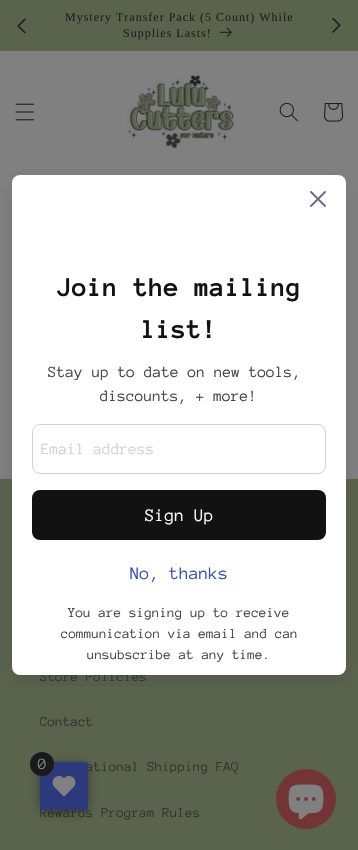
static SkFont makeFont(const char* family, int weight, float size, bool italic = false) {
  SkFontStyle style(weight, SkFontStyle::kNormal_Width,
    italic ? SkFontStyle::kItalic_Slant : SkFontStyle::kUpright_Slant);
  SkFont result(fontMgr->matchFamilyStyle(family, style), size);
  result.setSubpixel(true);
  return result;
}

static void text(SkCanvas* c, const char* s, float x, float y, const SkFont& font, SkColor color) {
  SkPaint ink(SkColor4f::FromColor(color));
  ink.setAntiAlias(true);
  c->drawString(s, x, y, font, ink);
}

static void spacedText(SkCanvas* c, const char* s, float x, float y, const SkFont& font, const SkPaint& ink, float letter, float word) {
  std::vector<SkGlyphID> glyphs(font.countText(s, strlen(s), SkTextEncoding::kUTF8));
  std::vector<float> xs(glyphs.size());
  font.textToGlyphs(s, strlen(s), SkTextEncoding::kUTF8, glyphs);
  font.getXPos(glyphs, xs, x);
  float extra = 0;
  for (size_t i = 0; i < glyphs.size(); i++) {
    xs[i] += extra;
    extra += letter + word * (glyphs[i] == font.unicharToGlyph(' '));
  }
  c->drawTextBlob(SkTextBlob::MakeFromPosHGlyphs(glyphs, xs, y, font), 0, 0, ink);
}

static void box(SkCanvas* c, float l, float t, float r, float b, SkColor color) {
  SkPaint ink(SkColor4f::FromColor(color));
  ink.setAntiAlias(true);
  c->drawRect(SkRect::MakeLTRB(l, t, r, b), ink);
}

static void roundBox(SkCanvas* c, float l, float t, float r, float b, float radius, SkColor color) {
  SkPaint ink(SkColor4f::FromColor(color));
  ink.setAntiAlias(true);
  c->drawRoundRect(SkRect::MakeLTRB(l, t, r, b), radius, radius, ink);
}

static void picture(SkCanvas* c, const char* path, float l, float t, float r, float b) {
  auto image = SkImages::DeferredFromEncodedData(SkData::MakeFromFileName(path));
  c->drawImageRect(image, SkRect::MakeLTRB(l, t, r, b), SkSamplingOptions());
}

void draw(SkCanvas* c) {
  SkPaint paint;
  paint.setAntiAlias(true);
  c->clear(0xff808080);
  box(c, 0, 0, 358, 51, 0xff5a634c);
  picture(c, "img_01.png", 17, 18, 26, 34);
  SkFont face1 = makeFont("Liberation Serif", 400, 12);
  paint.setColor(0xff1f1f1f);
  spacedText(c, "Mystery Transfer Pack (5 Count) While", 65, 21, face1, paint, 1, 0);
  spacedText(c, "Supplies Lasts!", 123, 37, face1, paint, 1, 0);
  picture(c, "img_02.png", 220, 27, 232, 38);
  picture(c, "img_03.png", 332, 17, 341, 33);
  picture(c, "img_04.png", 15, 103, 35, 121);
  picture(c, "img_05.png", 126, 75, 236, 149);
  picture(c, "img_06.png", 279, 102, 298, 122);
  picture(c, "img_07.png", 324, 103, 344, 122);
  box(c, 0, 479, 358, 850, 0xff5a634c);
  c->save();
  c->clipRect(SkRect::MakeLTRB(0, 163, 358, 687));
  paint.setColor(0x1a121127);
  paint.setMaskFilter(SkMaskFilter::MakeBlur(kNormal_SkBlurStyle, 10));
  c->drawRoundRect(SkRect::MakeLTRB(12, 183, 346, 683), 8, 8, paint);
  paint.setMaskFilter(nullptr);
  c->restore();
  SkFont face2 = makeFont("Anonymous Pro", 400, 14);
  text(c, "Store Policies", 40, 681, face2, 0xff32342f);
  roundBox(c, 12, 175, 346, 675, 8, 0xffffffff);
  picture(c, "img_08.png", 310, 191, 326, 207);
  SkFont face3 = makeFont("Anonymous Pro", 700, 28);
  text(c, "Join the mailing", 57, 296, face3, 0xff121212);
  text(c, "list!", 141, 338, face3, 0xff121212);
  SkFont face4 = makeFont("Anonymous Pro", 400, 16);
  text(c, "Stay up to date on new tools,", 48, 377, face4, 0xff454545);
  text(c, "discounts, + more!", 100, 401, face4, 0xff454545);
  paint.setStyle(SkPaint::kStroke_Style);
  paint.setStrokeWidth(1);
  paint.setColor(0xffd1d1db);
  c->drawRoundRect(SkRect::MakeLTRB(32.5f, 424.5f, 325.5f, 473.5f), 7.5f, 7.5f, paint);
  text(c, "Email address", 41, 454, face4, 0xffd1d1db);
  roundBox(c, 32, 490, 326, 540, 8, 0xff121212);
  c->save();
  c->clipRect(SkRect::MakeLTRB(145, 490, 213, 540));
  SkFont face5 = makeFont("Anonymous Pro", 400, 18);
  text(c, "Sign Up", 145, 521, face5, 0xffffffff);
  c->restore();
  text(c, "No, thanks", 130, 579, face5, 0xff334fb4);
  text(c, "You are signing up to receive", 68, 617, face2, 0xff454545);
  text(c, "communication via email and can", 61, 638, face2, 0xff454545);
  text(c, "unsubscribe at any time.", 87, 659, face2, 0xff454545);
  text(c, "Contact", 40, 726, face2, 0xff32342f);
  text(c, "ational Shipping FAQ", 86, 771, face2, 0xff32342f);
  text(c, "Rewards Program Rules", 40, 817, face2, 0xff32342f);
  paint.setStyle(SkPaint::kFill_Style);
  paint.setColor(0x80000000);
  paint.setMaskFilter(SkMaskFilter::MakeBlur(kNormal_SkBlurStyle, 6));
  c->drawRect(SkRect::MakeLTRB(42, 766, 86, 810), paint);
  paint.setMaskFilter(nullptr);
  roundBox(c, 40, 762, 88, 810, 2, 0xff2c3a7d);
  paint.setColor(0xff1a1a1a);
  c->drawCircle(42, 764, 12, paint);
  text(c, "0", 38, 769, face4, 0xff808080);
  picture(c, "img_09.png", 52, 776, 76, 797);
  paint.setColor(0xff723434);
  c->drawCircle(306, 799, 30, paint);
  picture(c, "img_10.png", 288, 784, 324, 820);
}
